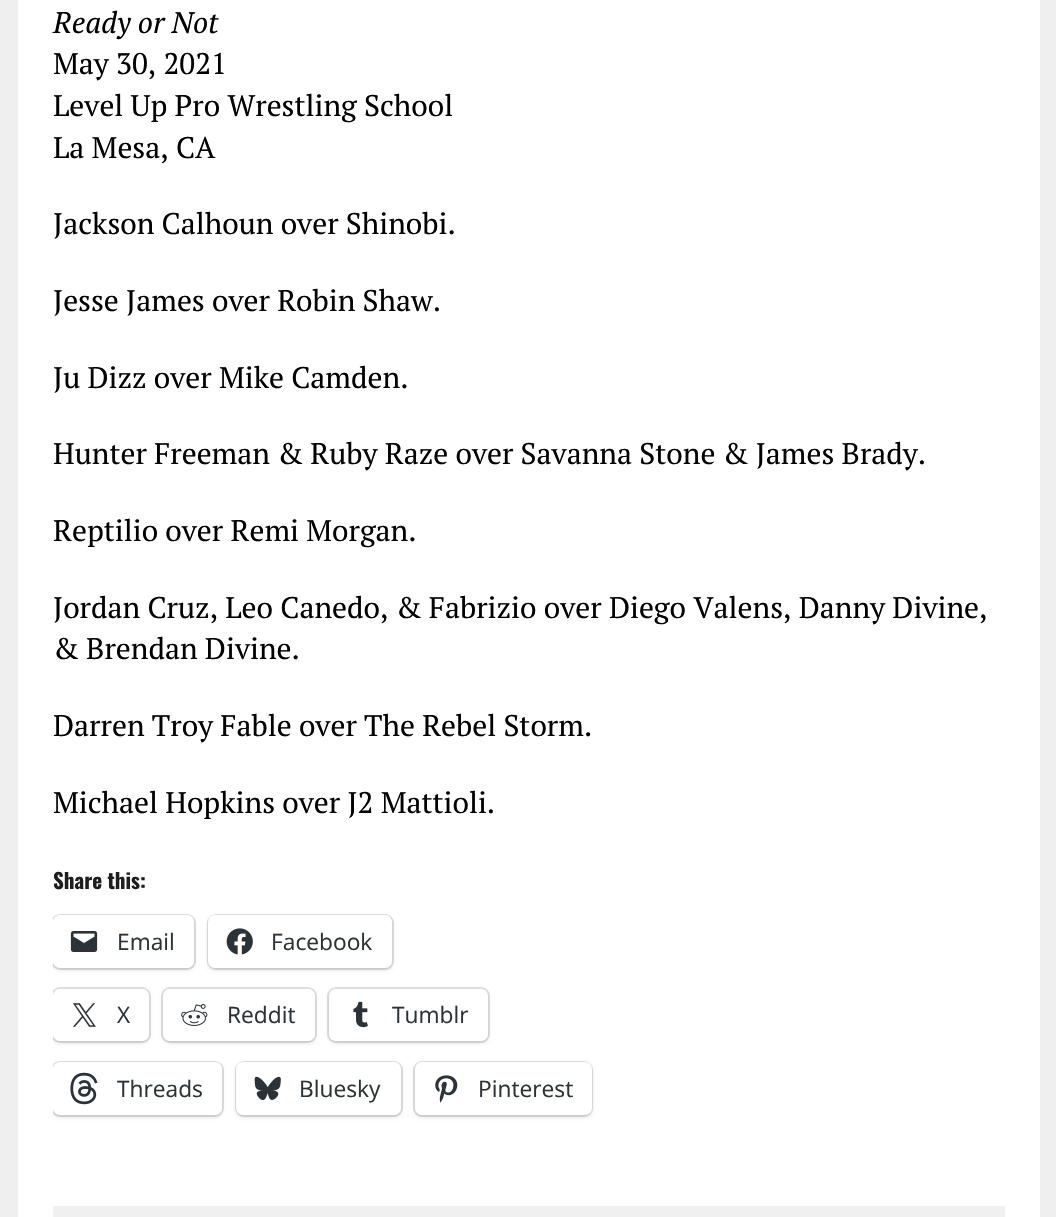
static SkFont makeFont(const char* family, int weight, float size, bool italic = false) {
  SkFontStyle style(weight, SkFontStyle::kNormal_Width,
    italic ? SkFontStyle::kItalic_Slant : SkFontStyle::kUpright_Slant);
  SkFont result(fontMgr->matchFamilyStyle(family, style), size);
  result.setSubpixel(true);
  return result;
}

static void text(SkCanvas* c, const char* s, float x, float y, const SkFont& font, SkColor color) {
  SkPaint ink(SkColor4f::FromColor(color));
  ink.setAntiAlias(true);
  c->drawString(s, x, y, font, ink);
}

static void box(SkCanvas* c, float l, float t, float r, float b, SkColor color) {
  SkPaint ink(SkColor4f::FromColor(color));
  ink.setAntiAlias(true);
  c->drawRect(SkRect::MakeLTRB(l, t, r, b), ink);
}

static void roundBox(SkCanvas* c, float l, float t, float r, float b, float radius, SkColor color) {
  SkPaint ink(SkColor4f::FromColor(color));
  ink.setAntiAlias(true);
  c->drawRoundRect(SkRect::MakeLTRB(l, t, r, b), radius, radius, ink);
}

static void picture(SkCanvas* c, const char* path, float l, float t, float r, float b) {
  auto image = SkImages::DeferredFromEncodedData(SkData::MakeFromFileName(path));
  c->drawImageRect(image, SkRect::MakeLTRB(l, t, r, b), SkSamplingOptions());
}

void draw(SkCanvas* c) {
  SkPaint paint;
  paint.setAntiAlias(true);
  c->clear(0xffefefef);
  box(c, 18, 0, 1040, 1217, 0xffffffff);
  SkFont face1 = makeFont("PT Serif", 400, 29.75f, true);
  text(c, "Ready or Not", 53, 33, face1, 0xff000000);
  SkFont face2 = makeFont("PT Serif", 400, 29.75f);
  text(c, "May 30, 2021", 53, 74, face2, 0xff000000);
  text(c, "Level Up Pro Wrestling School", 53, 116, face2, 0xff000000);
  text(c, "La Mesa, CA", 53, 158, face2, 0xff000000);
  text(c, "Jackson Calhoun over Shinobi.", 53, 234, face2, 0xff000000);
  text(c, "Jesse James over Robin Shaw.", 53, 311, face2, 0xff000000);
  text(c, "Ju Dizz over Mike Camden.", 53, 388, face2, 0xff000000);
  text(c, "Hunter Freeman & Ruby Raze over Savanna Stone & James Brady.", 53, 464, face2, 0xff000000);
  text(c, "Reptilio over Remi Morgan.", 53, 541, face2, 0xff000000);
  text(c, "Jordan Cruz, Leo Canedo, & Fabrizio over Diego Valens, Danny Divine,", 53, 618, face2, 0xff000000);
  text(c, "& Brendan Divine.", 53, 659, face2, 0xff000000);
  text(c, "Darren Troy Fable over The Rebel Storm.", 53, 736, face2, 0xff000000);
  text(c, "Michael Hopkins over J2 Mattioli.", 53, 813, face2, 0xff000000);
  SkFont face3 = makeFont("Oswald", 700, 21);
  text(c, "Share this:", 53, 889, face3, 0xff1f1e1e);
  c->save();
  c->clipRect(SkRect::MakeLTRB(53, 0, 1005, 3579));
  paint.setStyle(SkPaint::kStroke_Style);
  paint.setStrokeWidth(2);
  paint.setColor(0xffe0e0e0);
  c->drawRoundRect(SkRect::MakeLTRB(52, 915, 195, 969), 8, 8, paint);
  c->restore();
  c->save();
  c->clipRect(SkRect::MakeLTRB(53, 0, 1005, 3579));
  paint.setStyle(SkPaint::kFill_Style);
  paint.setColor(0x1f000000);
  paint.setMaskFilter(SkMaskFilter::MakeBlur(kNormal_SkBlurStyle, 2));
  c->drawRoundRect(SkRect::MakeLTRB(53, 917, 194, 970), 7, 7, paint);
  paint.setMaskFilter(nullptr);
  c->restore();
  roundBox(c, 53, 915, 194, 968, 7, 0xffffffff);
  picture(c, "img_01.png", 70, 931, 98, 952);
  SkFont face4 = makeFont("Open Sans", 400, 22.75f);
  text(c, "Email", 117, 950, face4, 0xff2c3338);
  paint.setStyle(SkPaint::kStroke_Style);
  paint.setColor(0xffe0e0e0);
  c->drawRoundRect(SkRect::MakeLTRB(208, 915, 393, 969), 8, 8, paint);
  paint.setStyle(SkPaint::kFill_Style);
  paint.setColor(0x1f000000);
  paint.setMaskFilter(SkMaskFilter::MakeBlur(kNormal_SkBlurStyle, 2));
  c->drawRoundRect(SkRect::MakeLTRB(208, 917, 392, 970), 7, 7, paint);
  paint.setMaskFilter(nullptr);
  roundBox(c, 208, 915, 392, 968, 7, 0xffffffff);
  picture(c, "img_02.png", 226, 928, 253, 955);
  text(c, "Facebook", 271, 950, face4, 0xff2c3338);
  c->save();
  c->clipRect(SkRect::MakeLTRB(53, 0, 1005, 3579));
  paint.setStyle(SkPaint::kStroke_Style);
  paint.setColor(0xffe0e0e0);
  c->drawRoundRect(SkRect::MakeLTRB(52, 988, 150, 1042), 8, 8, paint);
  c->restore();
  c->save();
  c->clipRect(SkRect::MakeLTRB(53, 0, 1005, 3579));
  paint.setStyle(SkPaint::kFill_Style);
  paint.setColor(0x1f000000);
  paint.setMaskFilter(SkMaskFilter::MakeBlur(kNormal_SkBlurStyle, 2));
  c->drawRoundRect(SkRect::MakeLTRB(53, 991, 149, 1043), 7, 7, paint);
  paint.setMaskFilter(nullptr);
  c->restore();
  roundBox(c, 53, 989, 149, 1041, 7, 0xffffffff);
  picture(c, "img_03.png", 73, 1003, 96, 1027);
  text(c, "X", 117, 1023, face4, 0xff2c3338);
  paint.setStyle(SkPaint::kStroke_Style);
  paint.setColor(0xffe0e0e0);
  c->drawRoundRect(SkRect::MakeLTRB(162, 988, 316, 1042), 8, 8, paint);
  paint.setStyle(SkPaint::kFill_Style);
  paint.setColor(0x1f000000);
  paint.setMaskFilter(SkMaskFilter::MakeBlur(kNormal_SkBlurStyle, 2));
  c->drawRoundRect(SkRect::MakeLTRB(163, 991, 315, 1043), 7, 7, paint);
  paint.setMaskFilter(nullptr);
  roundBox(c, 163, 989, 315, 1041, 7, 0xffffffff);
  picture(c, "img_04.png", 181, 1004, 208, 1026);
  text(c, "Reddit", 227, 1023, face4, 0xff2c3338);
  paint.setStyle(SkPaint::kStroke_Style);
  paint.setColor(0xffe0e0e0);
  c->drawRoundRect(SkRect::MakeLTRB(328, 988, 489, 1042), 8, 8, paint);
  paint.setStyle(SkPaint::kFill_Style);
  paint.setColor(0x1f000000);
  paint.setMaskFilter(SkMaskFilter::MakeBlur(kNormal_SkBlurStyle, 2));
  c->drawRoundRect(SkRect::MakeLTRB(329, 991, 488, 1043), 7, 7, paint);
  paint.setMaskFilter(nullptr);
  roundBox(c, 329, 989, 488, 1041, 7, 0xffffffff);
  picture(c, "img_05.png", 353, 1001, 368, 1028);
  text(c, "Tumblr", 392, 1023, face4, 0xff2c3338);
  c->save();
  c->clipRect(SkRect::MakeLTRB(53, 0, 1005, 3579));
  paint.setStyle(SkPaint::kStroke_Style);
  paint.setColor(0xffe0e0e0);
  c->drawRoundRect(SkRect::MakeLTRB(52, 1062, 223, 1116), 8, 8, paint);
  c->restore();
  c->save();
  c->clipRect(SkRect::MakeLTRB(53, 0, 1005, 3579));
  paint.setStyle(SkPaint::kFill_Style);
  paint.setColor(0x1f000000);
  paint.setMaskFilter(SkMaskFilter::MakeBlur(kNormal_SkBlurStyle, 2));
  c->drawRoundRect(SkRect::MakeLTRB(53, 1064, 222, 1117), 7, 7, paint);
  paint.setMaskFilter(nullptr);
  c->restore();
  roundBox(c, 53, 1062, 222, 1115, 7, 0xffffffff);
  picture(c, "img_06.png", 70, 1072, 98, 1105);
  text(c, "Threads", 117, 1097, face4, 0xff2c3338);
  paint.setStyle(SkPaint::kStroke_Style);
  paint.setColor(0xffe0e0e0);
  c->drawRoundRect(SkRect::MakeLTRB(236, 1062, 402, 1116), 8, 8, paint);
  paint.setStyle(SkPaint::kFill_Style);
  paint.setColor(0x1f000000);
  paint.setMaskFilter(SkMaskFilter::MakeBlur(kNormal_SkBlurStyle, 2));
  c->drawRoundRect(SkRect::MakeLTRB(236, 1064, 401, 1117), 7, 7, paint);
  paint.setMaskFilter(nullptr);
  roundBox(c, 236, 1062, 401, 1115, 7, 0xffffffff);
  picture(c, "img_07.png", 254, 1076, 281, 1101);
  text(c, "Bluesky", 299, 1097, face4, 0xff2c3338);
  paint.setStyle(SkPaint::kStroke_Style);
  paint.setColor(0xffe0e0e0);
  c->drawRoundRect(SkRect::MakeLTRB(414, 1062, 592, 1116), 8, 8, paint);
  paint.setStyle(SkPaint::kFill_Style);
  paint.setColor(0x1f000000);
  paint.setMaskFilter(SkMaskFilter::MakeBlur(kNormal_SkBlurStyle, 2));
  c->drawRoundRect(SkRect::MakeLTRB(415, 1064, 592, 1117), 7, 7, paint);
  paint.setMaskFilter(nullptr);
  roundBox(c, 415, 1062, 592, 1115, 7, 0xffffffff);
  picture(c, "img_08.png", 435, 1075, 458, 1103);
  text(c, "Pinterest", 478, 1097, face4, 0xff2c3338);
  box(c, 53, 1206, 1005, 1217, 0xfff0f0f0);
}
